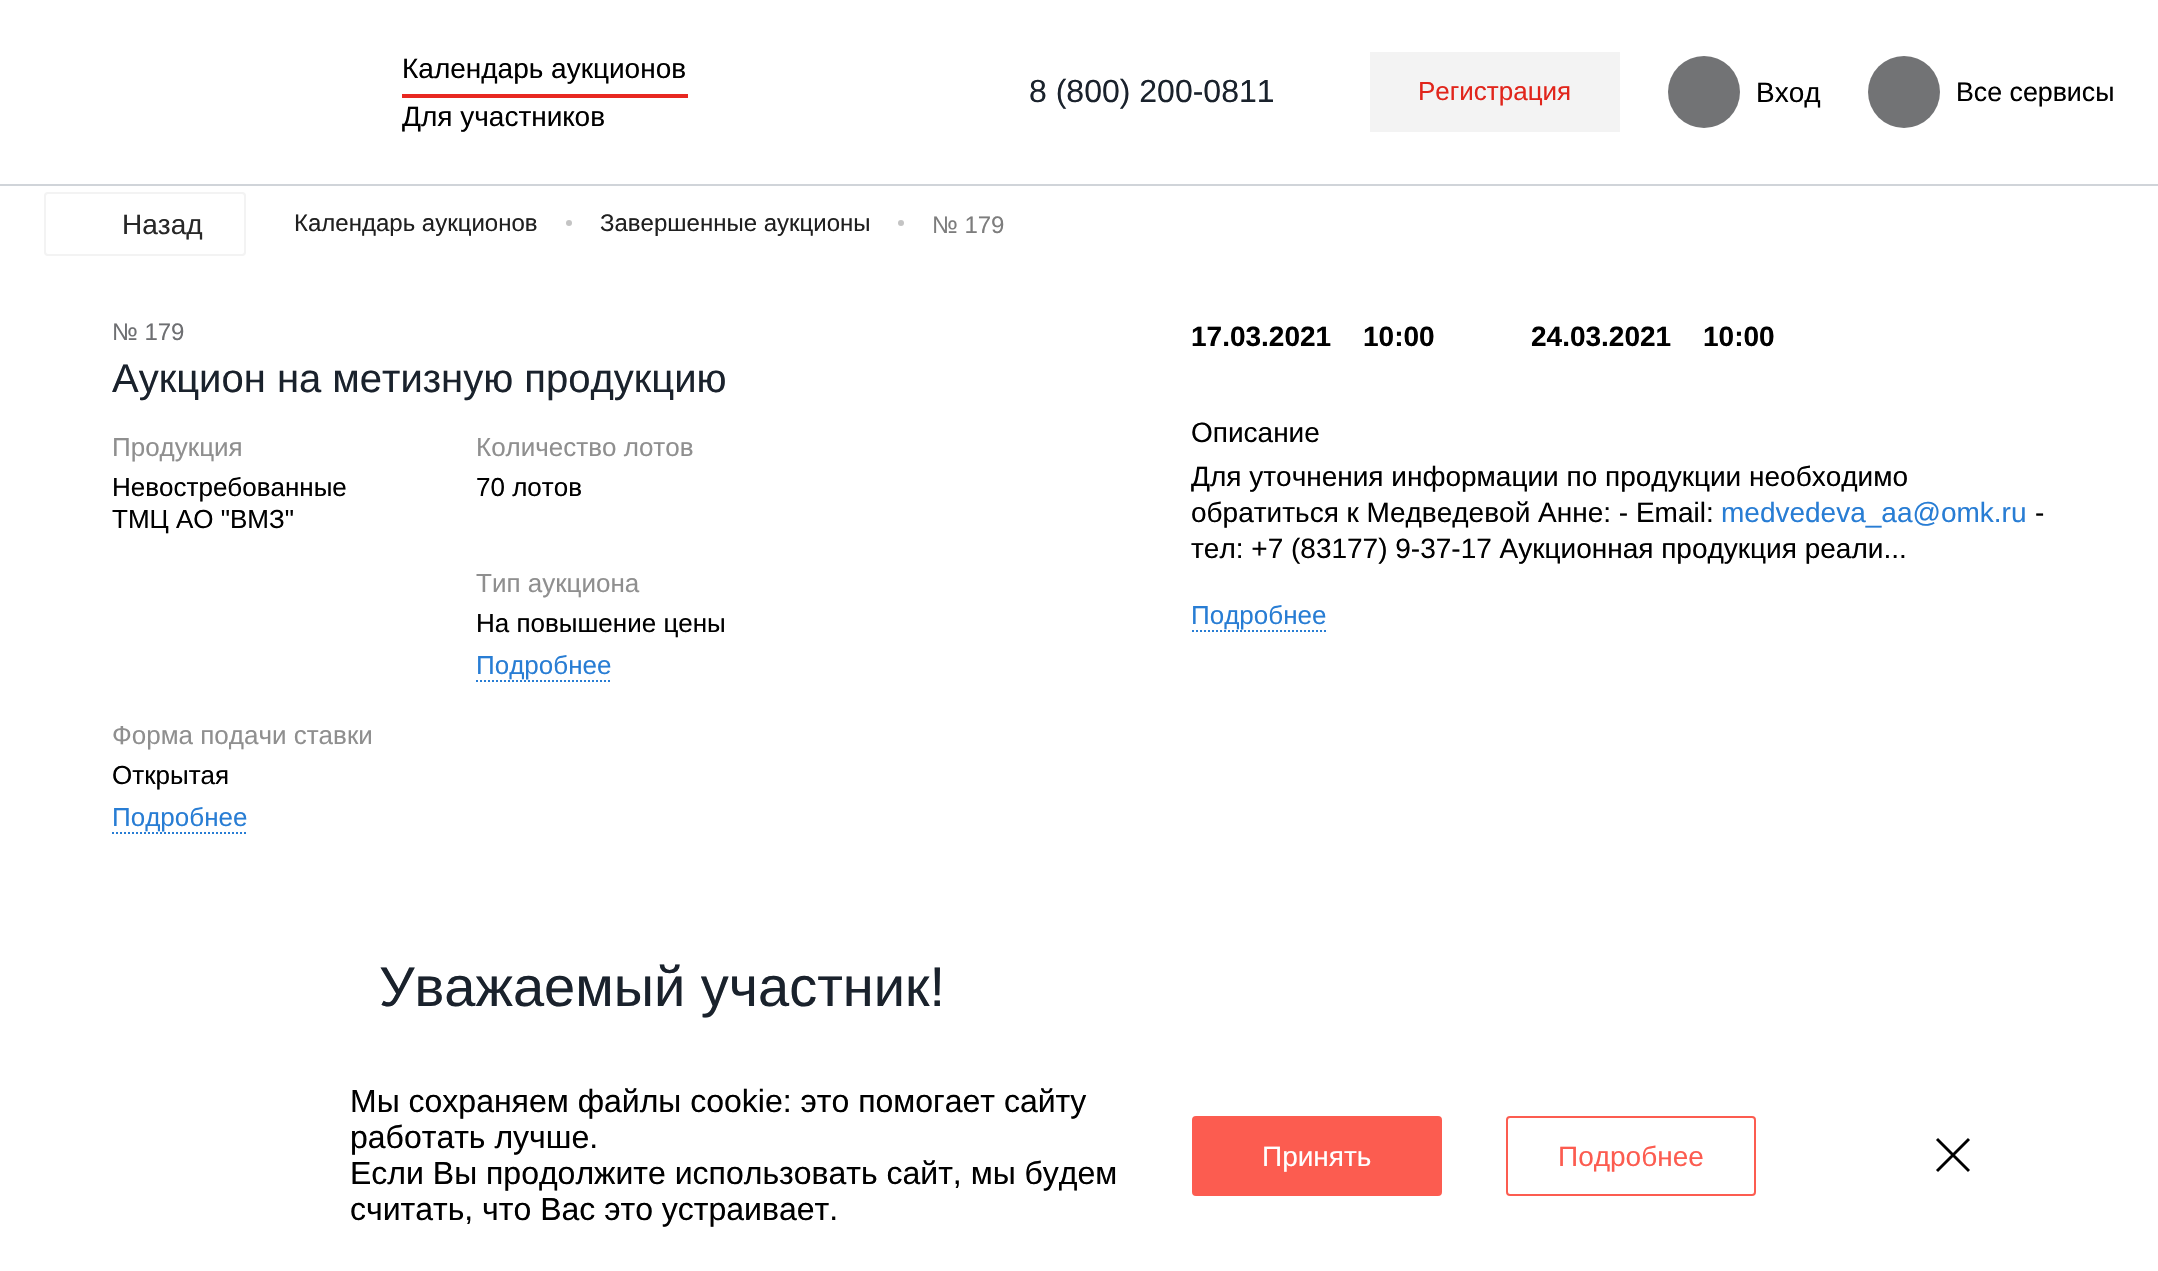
static SkFont makeFont(const char* family, int weight, float size, bool italic = false) {
  SkFontStyle style(weight, SkFontStyle::kNormal_Width,
    italic ? SkFontStyle::kItalic_Slant : SkFontStyle::kUpright_Slant);
  SkFont result(fontMgr->matchFamilyStyle(family, style), size);
  result.setSubpixel(true);
  return result;
}

static void text(SkCanvas* c, const char* s, float x, float y, const SkFont& font, SkColor color) {
  SkPaint ink(SkColor4f::FromColor(color));
  ink.setAntiAlias(true);
  c->drawString(s, x, y, font, ink);
}

static void box(SkCanvas* c, float l, float t, float r, float b, SkColor color) {
  SkPaint ink(SkColor4f::FromColor(color));
  ink.setAntiAlias(true);
  c->drawRect(SkRect::MakeLTRB(l, t, r, b), ink);
}

void draw(SkCanvas* c) {
  SkPaint paint;
  paint.setAntiAlias(true);
  c->clear(0xffffffff);
  box(c, 0, 184, 2158, 186, 0xffd0d4d9);
  SkFont face1 = makeFont("Liberation Sans", 400, 28);
  text(c, "Календарь аукционов", 402, 78, face1, 0xff000000);
  box(c, 402, 94, 688, 98, 0xffe82821);
  text(c, "Для участников", 402, 126, face1, 0xff000000);
  SkFont face2 = makeFont("Liberation Sans", 400, 32);
  text(c, "8 (800) 200-0811", 1029, 102, face2, 0xff1a222c);
  box(c, 1370, 52, 1620, 132, 0xfff3f3f3);
  SkFont face3 = makeFont("Liberation Sans", 400, 26);
  text(c, "Регистрация", 1418, 100, face3, 0xffe1251b);
  paint.setColor(0xff727375);
  c->drawCircle(1704, 92, 36, paint);
  text(c, "Вход", 1756, 102, face1, 0xff000000);
  c->drawCircle(1904, 92, 36, paint);
  SkFont face4 = makeFont("Liberation Sans", 400, 26.75f);
  text(c, "Все сервисы", 1956, 101, face4, 0xff000000);
  paint.setStyle(SkPaint::kStroke_Style);
  paint.setStrokeWidth(2);
  paint.setColor(0xfff3f3f3);
  c->drawRoundRect(SkRect::MakeLTRB(45, 193, 245, 255), 3, 3, paint);
  text(c, "Назад", 122, 234, face1, 0xff282828);
  SkFont face5 = makeFont("Liberation Sans", 400, 24);
  text(c, "Календарь аукционов", 294, 231, face5, 0xff202020);
  paint.setStyle(SkPaint::kFill_Style);
  paint.setColor(0xffc4c4c4);
  c->drawCircle(569, 223, 3, paint);
  text(c, "Завершенные аукционы", 600, 231, face5, 0xff202020);
  c->drawCircle(901, 223, 3, paint);
  text(c, "№ 179", 932, 233, face5, 0xff7d7d7d);
  text(c, "№ 179", 112, 340, face5, 0xff6e6f72);
  SkFont face6 = makeFont("Liberation Sans", 400, 40);
  text(c, "Аукцион на метизную продукцию", 112, 392, face6, 0xff1a222c);
  text(c, "Продукция", 112, 456, face3, 0xff8f8f8f);
  text(c, "Невостребованные", 112, 496, face3, 0xff000000);
  text(c, "ТМЦ АО \"ВМЗ\"", 112, 528, face3, 0xff000000);
  text(c, "Количество лотов", 476, 456, face3, 0xff8f8f8f);
  text(c, "70 лотов", 476, 496, face3, 0xff000000);
  text(c, "Тип аукциона", 476, 592, face3, 0xff8f8f8f);
  text(c, "На повышение цены", 476, 632, face3, 0xff000000);
  text(c, "Подробнее", 476, 674, face3, 0xff287dd4);
  paint.setStyle(SkPaint::kStroke_Style);
  paint.setColor(0xff287dd4);
  paint.setPathEffect(SkDashPathEffect::Make({{2, 2}}, 0));
  c->drawPath(SkPathBuilder().moveTo(476, 681).lineTo(612, 681).detach(), paint);
  paint.setPathEffect(nullptr);
  text(c, "Форма подачи ставки", 112, 744, face3, 0xff8f8f8f);
  text(c, "Открытая", 112, 784, face3, 0xff000000);
  text(c, "Подробнее", 112, 826, face3, 0xff287dd4);
  paint.setPathEffect(SkDashPathEffect::Make({{2, 2}}, 0));
  c->drawPath(SkPathBuilder().moveTo(112, 833).lineTo(248, 833).detach(), paint);
  paint.setPathEffect(nullptr);
  SkFont face7 = makeFont("Liberation Sans", 700, 28);
  text(c, "17.03.2021", 1191, 346, face7, 0xff000000);
  text(c, "10:00", 1363, 346, face7, 0xff000000);
  text(c, "24.03.2021", 1531, 346, face7, 0xff000000);
  text(c, "10:00", 1703, 346, face7, 0xff000000);
  text(c, "Описание", 1191, 442, face1, 0xff000000);
  text(c, "Для уточнения информации по продукции необходимо", 1191, 486, face1, 0xff000000);
  text(c, "обратиться к Медведевой Анне: - Email:", 1191, 522, face1, 0xff000000);
  text(c, "medvedeva_aa@omk.ru", 1721, 522, face1, 0xff287dd4);
  text(c, "-", 2035, 522, face1, 0xff000000);
  text(c, "тел: +7 (83177) 9-37-17 Аукционная продукция реали...", 1191, 558, face1, 0xff000000);
  text(c, "Подробнее", 1191, 624, face3, 0xff287dd4);
  paint.setPathEffect(SkDashPathEffect::Make({{2, 2}}, 0));
  c->drawPath(SkPathBuilder().moveTo(1192, 631).lineTo(1326, 631).detach(), paint);
  paint.setPathEffect(nullptr);
  SkFont face8 = makeFont("Liberation Sans", 400, 56);
  text(c, "Уважаемый участник!", 379, 1006, face8, 0xff1a222c);
  text(c, "Мы сохраняем файлы cookie: это помогает сайту", 350, 1112, face2, 0xff000000);
  text(c, "работать лучше.", 350, 1148, face2, 0xff000000);
  text(c, "Если Вы продолжите использовать сайт, мы будем", 350, 1184, face2, 0xff000000);
  text(c, "считать, что Вас это устраивает.", 350, 1220, face2, 0xff000000);
  paint.setStyle(SkPaint::kFill_Style);
  paint.setColor(0xfffc5c50);
  c->drawRoundRect(SkRect::MakeLTRB(1193, 1117, 1441, 1195), 3, 3, paint);
  paint.setStyle(SkPaint::kStroke_Style);
  c->drawRoundRect(SkRect::MakeLTRB(1193, 1117, 1441, 1195), 3, 3, paint);
  text(c, "Принять", 1262, 1166, face1, 0xffffffff);
  c->drawRoundRect(SkRect::MakeLTRB(1507, 1117, 1755, 1195), 3, 3, paint);
  text(c, "Подробнее", 1558, 1166, face1, 0xfffc5c50);
  paint.setStrokeWidth(2.9f);
  paint.setColor(0xff000000);
  c->drawPath(SkPathBuilder().moveTo(1969, 1171).lineTo(1937, 1139).moveTo(1969, 1139).lineTo(1937, 1171).detach(), paint);
}
